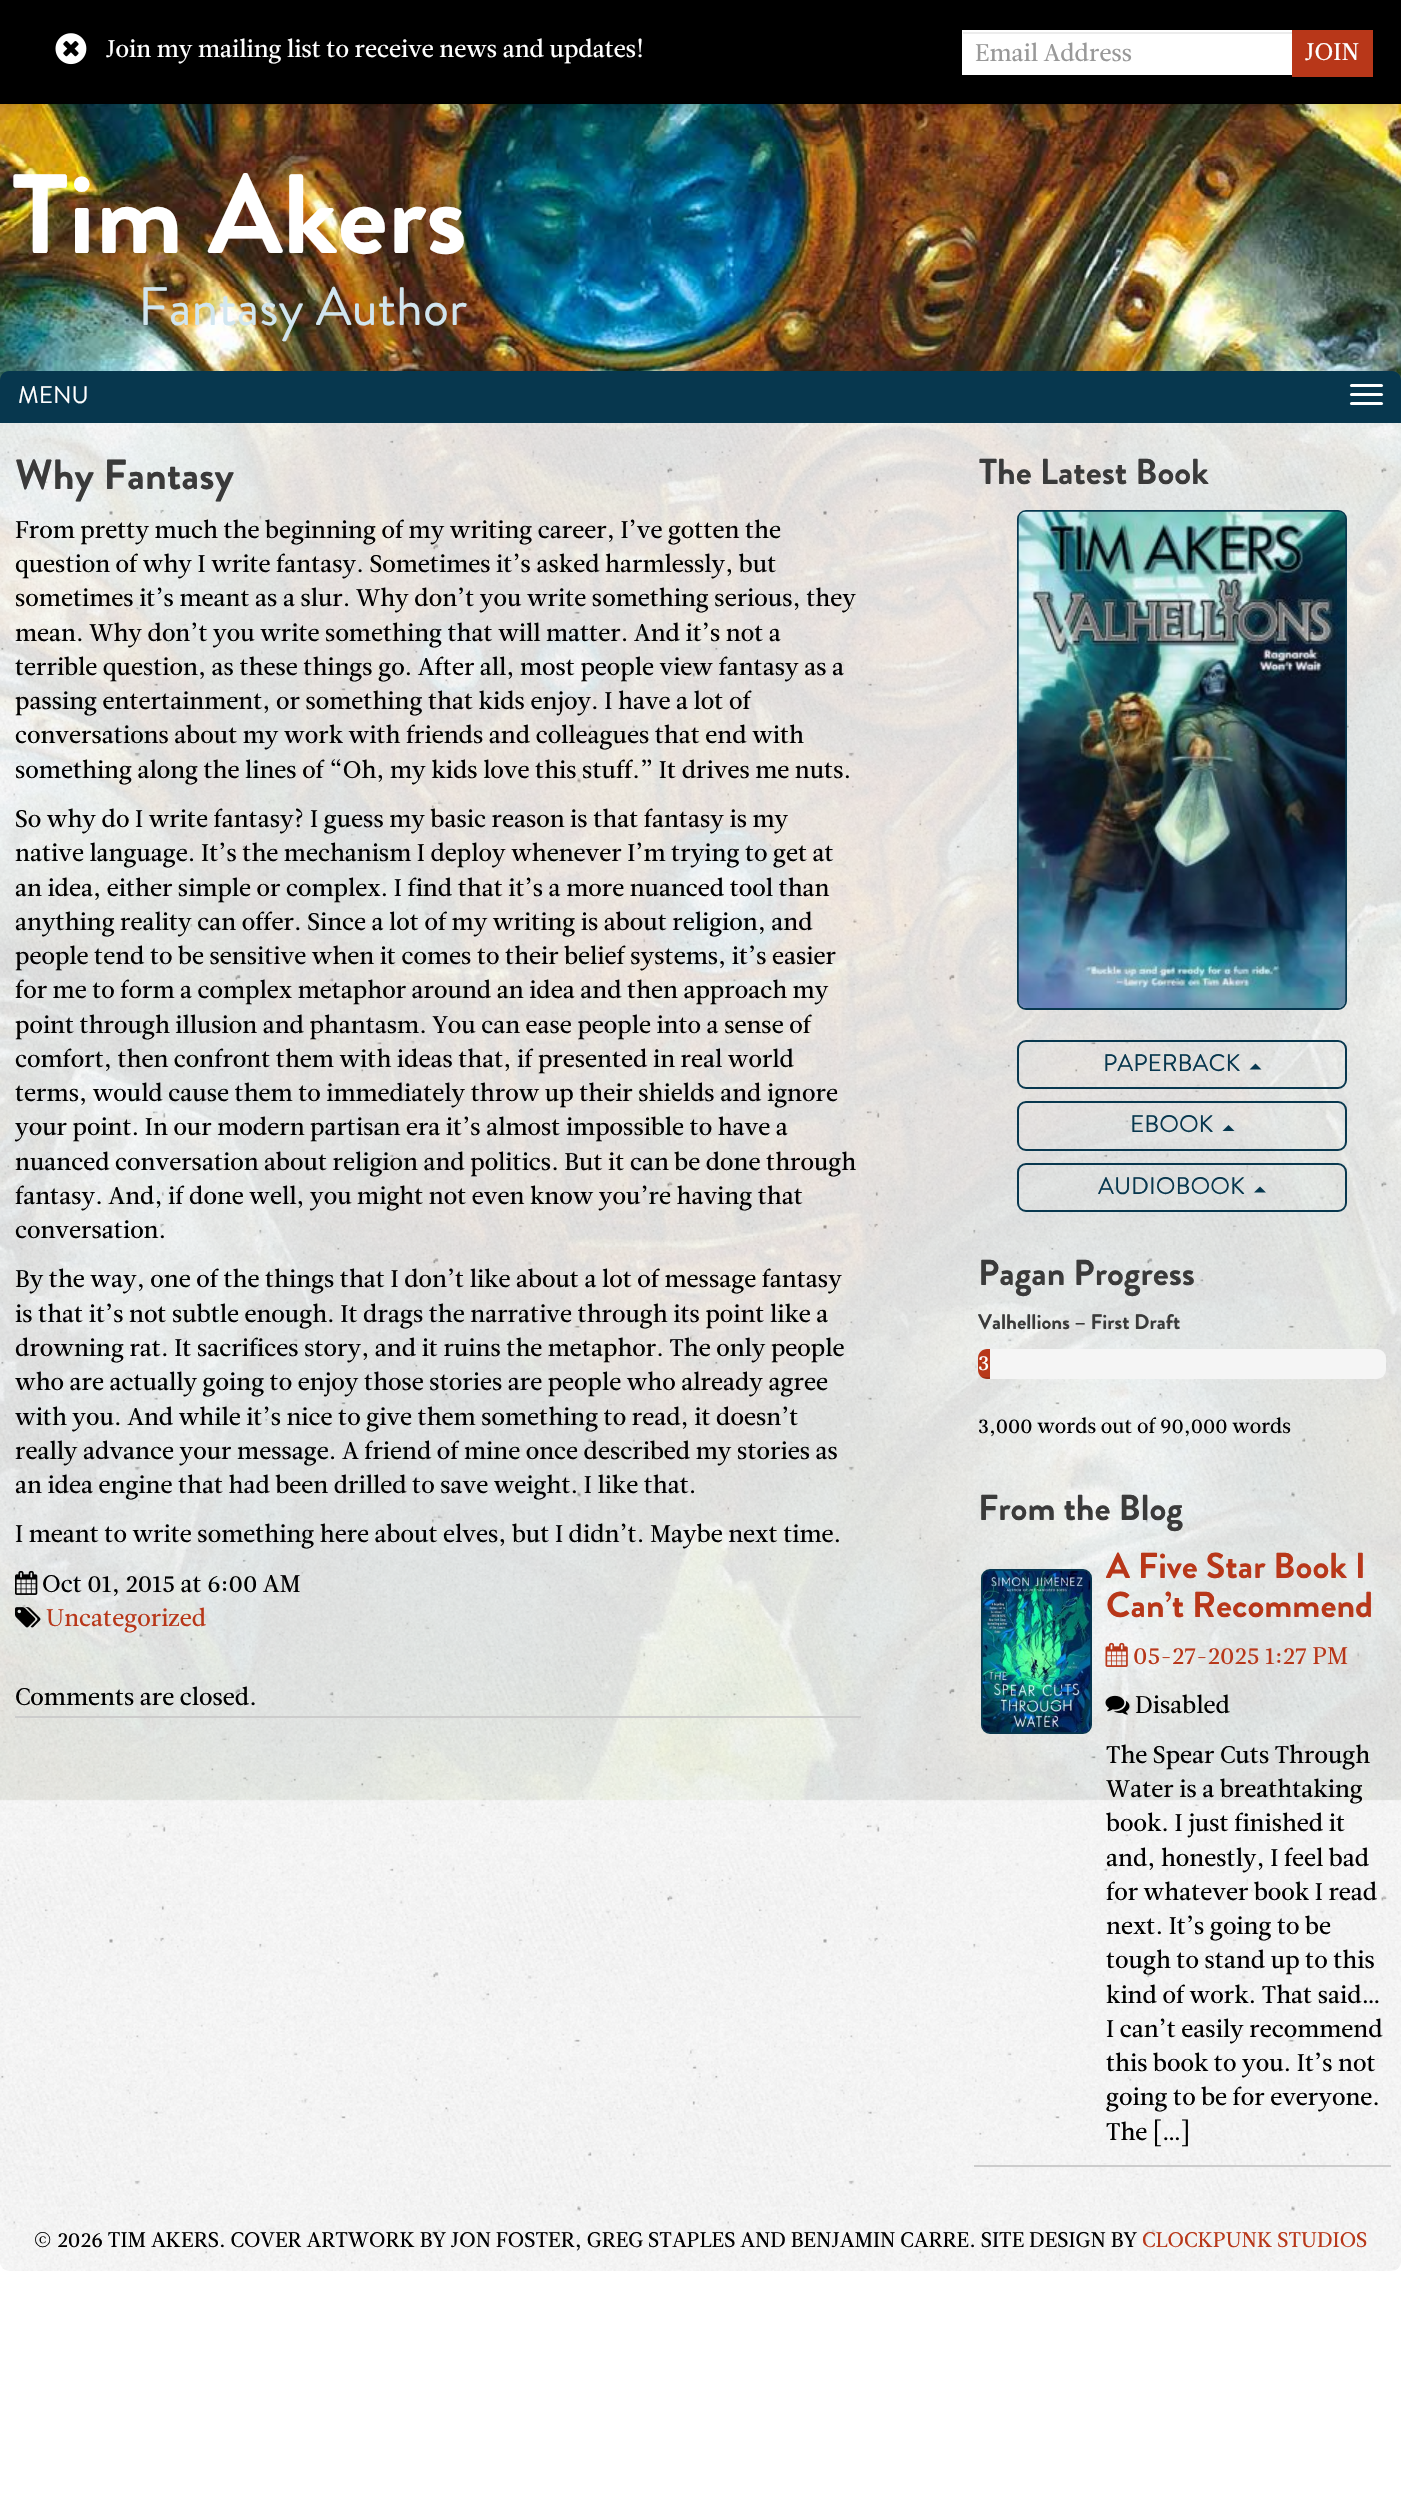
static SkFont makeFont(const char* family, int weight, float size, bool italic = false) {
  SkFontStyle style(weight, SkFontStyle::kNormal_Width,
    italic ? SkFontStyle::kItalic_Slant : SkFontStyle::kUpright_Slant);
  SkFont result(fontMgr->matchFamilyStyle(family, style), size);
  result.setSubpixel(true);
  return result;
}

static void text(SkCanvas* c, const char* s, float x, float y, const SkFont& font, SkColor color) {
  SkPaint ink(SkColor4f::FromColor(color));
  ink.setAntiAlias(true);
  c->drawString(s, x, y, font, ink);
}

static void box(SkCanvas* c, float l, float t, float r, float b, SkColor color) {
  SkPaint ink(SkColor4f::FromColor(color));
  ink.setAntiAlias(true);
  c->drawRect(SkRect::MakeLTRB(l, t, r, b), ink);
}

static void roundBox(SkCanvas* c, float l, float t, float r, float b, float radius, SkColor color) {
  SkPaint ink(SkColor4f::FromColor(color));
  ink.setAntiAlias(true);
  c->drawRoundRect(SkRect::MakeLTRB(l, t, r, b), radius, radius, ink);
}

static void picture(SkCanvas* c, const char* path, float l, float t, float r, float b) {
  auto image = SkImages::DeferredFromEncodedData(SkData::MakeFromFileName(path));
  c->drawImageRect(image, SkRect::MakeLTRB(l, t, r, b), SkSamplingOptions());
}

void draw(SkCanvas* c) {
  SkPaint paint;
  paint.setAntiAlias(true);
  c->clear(0xffffffff);
  picture(c, "img_01.png", 0, 104, 1401, 1801);
  paint.setColor(0x33000000);
  paint.setMaskFilter(SkMaskFilter::MakeBlur(kNormal_SkBlurStyle, 9));
  c->drawRect(SkRect::MakeLTRB(0, 5, 1401, 108), paint);
  paint.setMaskFilter(nullptr);
  box(c, 0, 0, 1401, 104, 0xff000000);
  picture(c, "img_02.png", 55, 33, 87, 65);
  SkFont face1 = makeFont("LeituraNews", 400, 24);
  text(c, "Join my mailing list to receive news and updates!", 106, 57, face1, 0xffffffff);
  box(c, 962, 30, 1292, 75, 0xffffffff);
  box(c, 963, 32, 1292, 34, 0xffececec);
  text(c, "Email Address", 975, 61, face1, 0xff999999);
  box(c, 1292, 30, 1373, 77, 0xffb83719);
  text(c, "JOIN", 1305, 60, face1, 0xffffffff);
  SkFont face2 = makeFont("Brandon Grotesque", 700, 112.5f);
  text(c, "Tim Akers", 12, 253, face2, 0xffffffff);
  SkFont face3 = makeFont("Brandon Grotesque", 400, 54);
  text(c, "Fantasy Author", 138, 325, face3, 0xffd1e6f0);
  paint.setColor(0xff07374e);
  c->drawPath(SkPathBuilder().moveTo(9, 371).lineTo(1392, 371).cubicTo(1397, 371, 1401, 375, 1401, 380).lineTo(1401, 423).lineTo(0, 423).lineTo(0, 380).cubicTo(0, 375, 4, 371, 9, 371).close().detach(), paint);
  SkFont face4 = makeFont("Brandon Grotesque", 400, 24);
  text(c, "MENU", 18, 403, face4, 0xffffffff);
  roundBox(c, 1350, 384, 1383, 387, 1.5f, 0xffffffff);
  roundBox(c, 1350, 393, 1383, 396, 1.5f, 0xffffffff);
  roundBox(c, 1350, 402, 1383, 405, 1.5f, 0xffffffff);
  picture(c, "img_03.png", 0, 423, 1401, 2271);
  box(c, 15, 1716, 861, 1718, 0xffcccccc);
  SkFont face5 = makeFont("Brandon Grotesque", 700, 42);
  text(c, "Why Fantasy", 15, 489, face5, 0xff3a3a3a);
  text(c, "From pretty much the beginning of my writing career, I’ve gotten the", 15, 538, face1, 0xff000000);
  text(c, "question of why I write fantasy. Sometimes it’s asked harmlessly, but", 15, 572, face1, 0xff000000);
  text(c, "sometimes it’s meant as a slur. Why don’t you write something serious, they", 15, 606, face1, 0xff000000);
  text(c, "mean. Why don’t you write something that will matter. And it’s not a", 15, 641, face1, 0xff000000);
  text(c, "terrible question, as these things go. After all, most people view fantasy as a", 15, 675, face1, 0xff000000);
  text(c, "passing entertainment, or something that kids enjoy. I have a lot of", 15, 709, face1, 0xff000000);
  text(c, "conversations about my work with friends and colleagues that end with", 15, 743, face1, 0xff000000);
  text(c, "something along the lines of “Oh, my kids love this stuff.” It drives me nuts.", 15, 778, face1, 0xff000000);
  text(c, "So why do I write fantasy? I guess my basic reason is that fantasy is my", 15, 827, face1, 0xff000000);
  text(c, "native language. It’s the mechanism I deploy whenever I’m trying to get at", 15, 861, face1, 0xff000000);
  text(c, "an idea, either simple or complex. I find that it’s a more nuanced tool than", 15, 896, face1, 0xff000000);
  text(c, "anything reality can offer. Since a lot of my writing is about religion, and", 15, 930, face1, 0xff000000);
  text(c, "people tend to be sensitive when it comes to their belief systems, it’s easier", 15, 964, face1, 0xff000000);
  text(c, "for me to form a complex metaphor around an idea and then approach my", 15, 998, face1, 0xff000000);
  text(c, "point through illusion and phantasm. You can ease people into a sense of", 15, 1033, face1, 0xff000000);
  text(c, "comfort, then confront them with ideas that, if presented in real world", 15, 1067, face1, 0xff000000);
  text(c, "terms, would cause them to immediately throw up their shields and ignore", 15, 1101, face1, 0xff000000);
  text(c, "your point. In our modern partisan era it’s almost impossible to have a", 15, 1135, face1, 0xff000000);
  text(c, "nuanced conversation about religion and politics. But it can be done through", 15, 1170, face1, 0xff000000);
  text(c, "fantasy. And, if done well, you might not even know you’re having that", 15, 1204, face1, 0xff000000);
  text(c, "conversation.", 15, 1238, face1, 0xff000000);
  text(c, "By the way, one of the things that I don’t like about a lot of message fantasy", 15, 1287, face1, 0xff000000);
  text(c, "is that it’s not subtle enough. It drags the narrative through its point like a", 15, 1322, face1, 0xff000000);
  text(c, "drowning rat. It sacrifices story, and it ruins the metaphor. The only people", 15, 1356, face1, 0xff000000);
  text(c, "who are actually going to enjoy those stories are people who already agree", 15, 1390, face1, 0xff000000);
  text(c, "with you. And while it’s nice to give them something to read, it doesn’t", 15, 1425, face1, 0xff000000);
  text(c, "really advance your message. A friend of mine once described my stories as", 15, 1459, face1, 0xff000000);
  text(c, "an idea engine that had been drilled to save weight. I like that.", 15, 1493, face1, 0xff000000);
  text(c, "I meant to write something here about elves, but I didn’t. Maybe next time.", 15, 1542, face1, 0xff000000);
  picture(c, "img_04.png", 15, 1570, 38, 1595);
  text(c, "Oct 01, 2015 at 6:00 AM", 42, 1592, face1, 0xff000000);
  picture(c, "img_05.png", 15, 1607, 41, 1628);
  text(c, "Uncategorized", 46, 1626, face1, 0xffb83719);
  text(c, "Comments are closed.", 15, 1705, face1, 0xff000000);
  SkFont face6 = makeFont("Brandon Grotesque", 700, 36);
  text(c, "The Latest Book", 979, 484, face6, 0xff3a3a3a);
  paint.setStyle(SkPaint::kStroke_Style);
  paint.setStrokeWidth(2);
  c->drawRoundRect(SkRect::MakeLTRB(1018, 511, 1346, 1009), 8, 8, paint);
  picture(c, "img_06.png", 1018, 511, 1346, 1008);
  c->drawRoundRect(SkRect::MakeLTRB(1018, 1041, 1346, 1088), 8, 8, paint);
  text(c, "PAPERBACK", 1103, 1071, face4, 0xff07374e);
  paint.setStyle(SkPaint::kFill_Style);
  c->drawPath(SkPathBuilder().moveTo(1261.5f, 1069.5f).lineTo(1249.5f, 1069.5f).lineTo(1255.5f, 1063.5f).close().detach(), paint);
  paint.setStyle(SkPaint::kStroke_Style);
  c->drawRoundRect(SkRect::MakeLTRB(1018, 1102, 1346, 1150), 8, 8, paint);
  text(c, "EBOOK", 1130, 1132, face4, 0xff07374e);
  paint.setStyle(SkPaint::kFill_Style);
  c->drawPath(SkPathBuilder().moveTo(1234.5f, 1131).lineTo(1222.5f, 1131).lineTo(1228.5f, 1125).close().detach(), paint);
  paint.setStyle(SkPaint::kStroke_Style);
  c->drawRoundRect(SkRect::MakeLTRB(1018, 1164, 1346, 1211), 8, 8, paint);
  text(c, "AUDIOBOOK", 1098, 1194, face4, 0xff07374e);
  paint.setStyle(SkPaint::kFill_Style);
  c->drawPath(SkPathBuilder().moveTo(1266, 1192.5f).lineTo(1254, 1192.5f).lineTo(1260, 1186.5f).close().detach(), paint);
  text(c, "Pagan Progress", 978, 1285, face6, 0xff3a3a3a);
  SkFont face7 = makeFont("Brandon Grotesque", 700, 21);
  text(c, "Valhellions – First Draft", 978, 1329, face7, 0xff3a3a3a);
  roundBox(c, 978, 1349, 1386, 1379, 9, 0xfff5f5f5);
  paint.setColor(0xffb83719);
  c->drawPath(SkPathBuilder().moveTo(987, 1349).lineTo(990, 1349).lineTo(990, 1379).lineTo(987, 1379).cubicTo(982, 1379, 978, 1375, 978, 1370).lineTo(978, 1358).cubicTo(978, 1353, 982, 1349, 987, 1349).close().detach(), paint);
  c->save();
  c->clipPath(SkPathBuilder().moveTo(987, 1349).lineTo(1377, 1349).cubicTo(1382, 1349, 1386, 1353, 1386, 1358).lineTo(1386, 1370).cubicTo(1386, 1375, 1382, 1379, 1377, 1379).lineTo(987, 1379).cubicTo(982, 1379, 978, 1375, 978, 1370).lineTo(978, 1358).cubicTo(978, 1353, 982, 1349, 987, 1349).close().detach(), true);
  box(c, 978, 1377, 990, 1379, 0x26000000);
  c->restore();
  SkFont face8 = makeFont("LeituraNews", 400, 21);
  text(c, "3", 978, 1370, face8, 0xffffffff);
  SkFont face9 = makeFont("LeituraNews", 400, 20.4f);
  text(c, "3,000 words out of 90,000 words", 978, 1433, face9, 0xff000000);
  text(c, "From the Blog", 978, 1520, face6, 0xff3a3a3a);
  box(c, 974, 2165, 1391, 2167, 0xffcccccc);
  paint.setStyle(SkPaint::kStroke_Style);
  paint.setColor(0xff07374e);
  c->drawRoundRect(SkRect::MakeLTRB(982, 1570, 1091, 1733), 8, 8, paint);
  picture(c, "img_07.png", 982, 1570, 1091, 1733);
  text(c, "A Five Star Book I", 1106, 1578, face6, 0xffb83719);
  text(c, "Can’t Recommend", 1106, 1617, face6, 0xffb83719);
  picture(c, "img_08.png", 1105, 1642, 1128, 1667);
  text(c, "05-27-2025 1:27 PM", 1133, 1664, face1, 0xffb83719);
  picture(c, "img_09.png", 1105, 1695, 1130, 1715);
  text(c, "Disabled", 1135, 1713, face1, 0xff000000);
  text(c, "The Spear Cuts Through", 1106, 1763, face1, 0xff000000);
  text(c, "Water is a breathtaking", 1106, 1797, face1, 0xff000000);
  text(c, "book. I just finished it", 1106, 1831, face1, 0xff000000);
  text(c, "and, honestly, I feel bad", 1106, 1866, face1, 0xff000000);
  text(c, "for whatever book I read", 1106, 1900, face1, 0xff000000);
  text(c, "next. It’s going to be", 1106, 1934, face1, 0xff000000);
  text(c, "tough to stand up to this", 1106, 1968, face1, 0xff000000);
  text(c, "kind of work. That said…", 1106, 2003, face1, 0xff000000);
  text(c, "I can’t easily recommend", 1106, 2037, face1, 0xff000000);
  text(c, "this book to you. It’s not", 1106, 2071, face1, 0xff000000);
  text(c, "going to be for everyone.", 1106, 2105, face1, 0xff000000);
  text(c, "The […]", 1106, 2140, face1, 0xff000000);
  text(c, "© 2026 TIM AKERS. COVER ARTWORK BY JON FOSTER, GREG STAPLES AND BENJAMIN CARRE. SITE DESIGN BY", 33, 2247, face8, 0xff000000);
  text(c, "CLOCKPUNK STUDIOS", 1142, 2247, face8, 0xffb83719);
}
